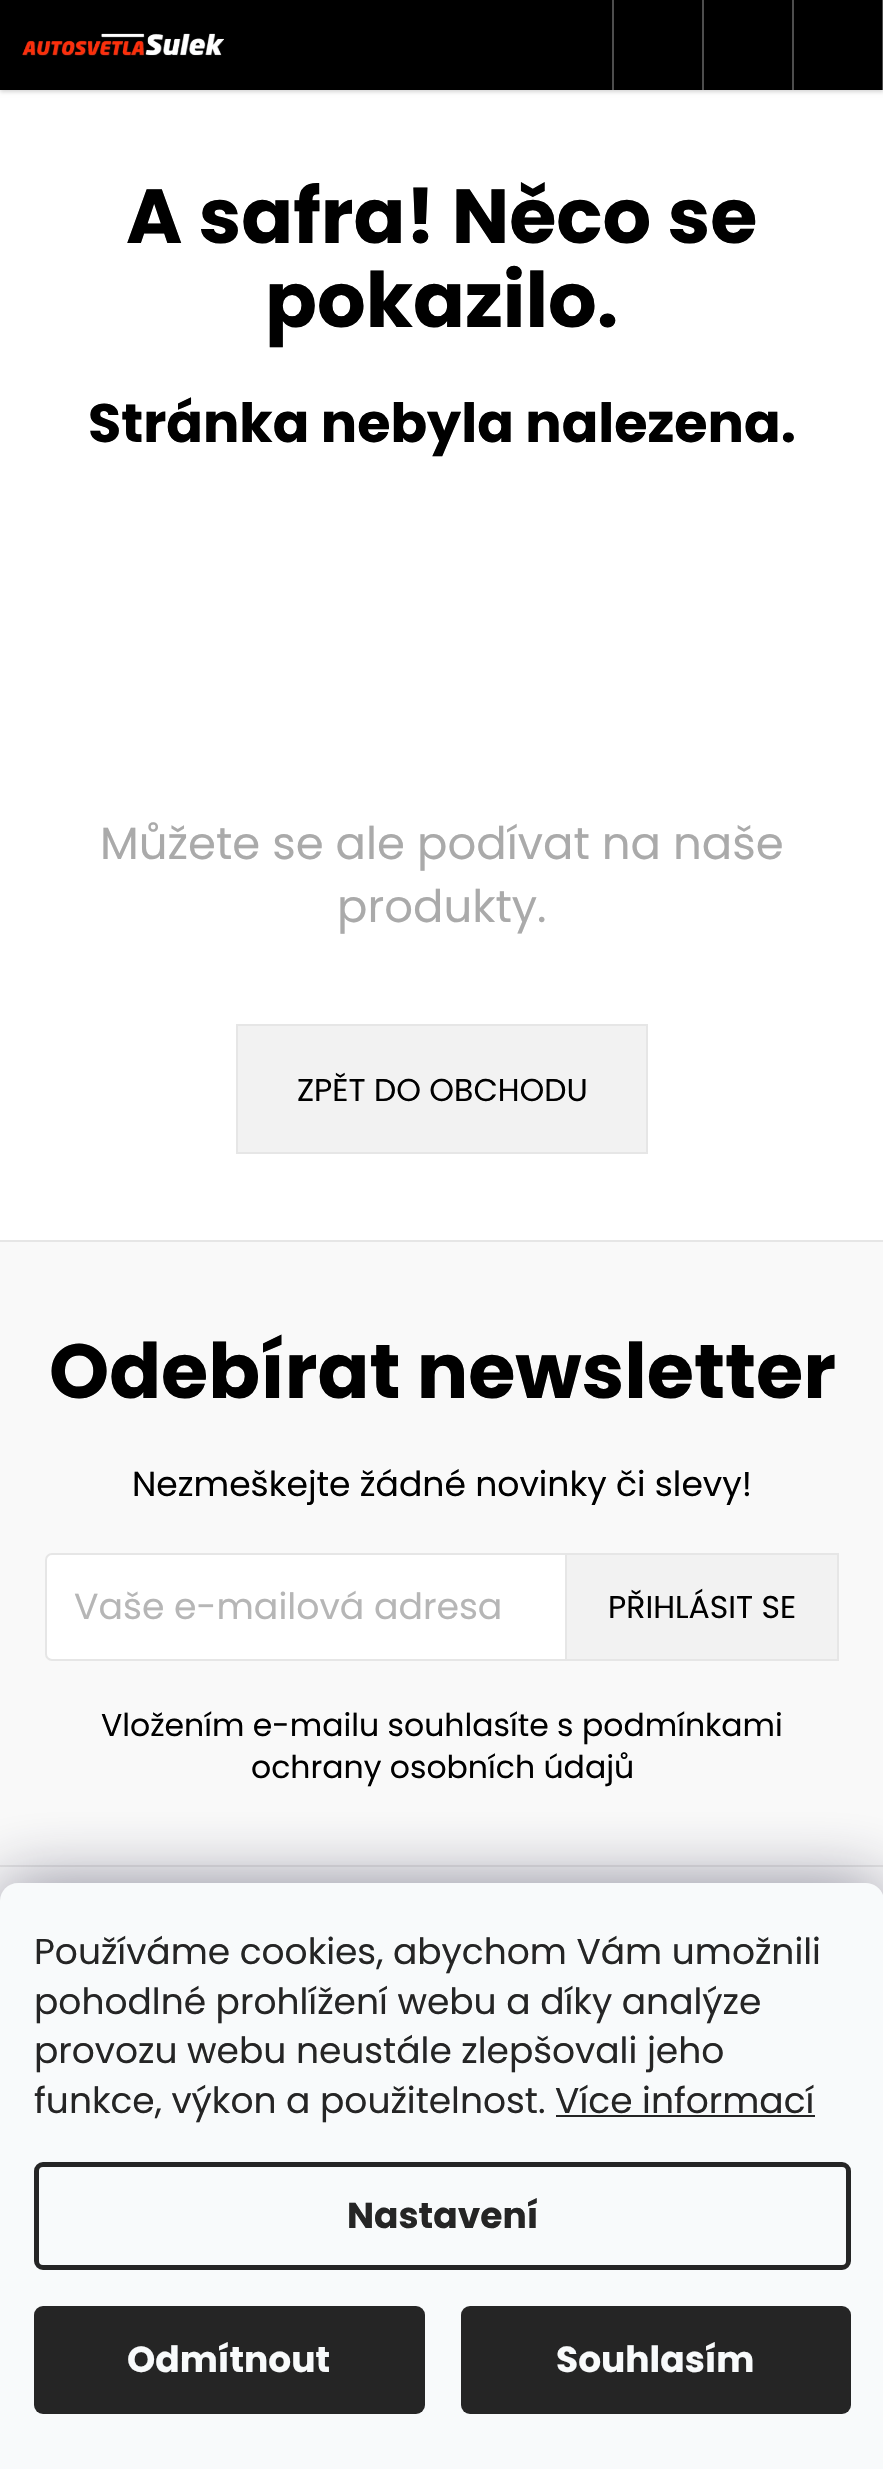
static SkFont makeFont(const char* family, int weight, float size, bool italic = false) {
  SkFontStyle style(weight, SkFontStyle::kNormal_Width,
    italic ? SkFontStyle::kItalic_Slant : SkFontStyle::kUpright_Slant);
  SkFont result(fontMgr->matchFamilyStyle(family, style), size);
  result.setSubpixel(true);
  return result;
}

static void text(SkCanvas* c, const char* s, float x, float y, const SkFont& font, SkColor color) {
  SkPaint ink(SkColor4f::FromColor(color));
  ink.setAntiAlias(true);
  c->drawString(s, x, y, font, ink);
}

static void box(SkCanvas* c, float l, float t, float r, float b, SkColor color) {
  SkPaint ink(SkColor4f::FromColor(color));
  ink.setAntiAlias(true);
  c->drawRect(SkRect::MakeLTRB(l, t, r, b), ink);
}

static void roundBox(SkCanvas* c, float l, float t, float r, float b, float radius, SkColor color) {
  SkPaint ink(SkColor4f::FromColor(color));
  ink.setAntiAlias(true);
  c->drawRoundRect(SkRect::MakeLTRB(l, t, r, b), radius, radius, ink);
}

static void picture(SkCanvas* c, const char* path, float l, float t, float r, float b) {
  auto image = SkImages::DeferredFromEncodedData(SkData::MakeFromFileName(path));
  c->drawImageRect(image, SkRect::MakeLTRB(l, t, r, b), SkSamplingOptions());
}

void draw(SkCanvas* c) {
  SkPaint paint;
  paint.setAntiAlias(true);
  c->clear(0xffffffff);
  paint.setColor(0x29000000);
  paint.setMaskFilter(SkMaskFilter::MakeBlur(kNormal_SkBlurStyle, 2));
  c->drawRect(SkRect::MakeLTRB(0, 2, 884, 92), paint);
  paint.setMaskFilter(nullptr);
  box(c, 0, 0, 882, 90, 0xff000000);
  picture(c, "img_01.png", 22, 33, 224, 56);
  box(c, 882, 0, 883, 90, 0xff4d4d4d);
  box(c, 612, 0, 614, 90, 0xff4d4d4d);
  box(c, 702, 0, 704, 90, 0xff4d4d4d);
  box(c, 792, 0, 794, 90, 0xff4d4d4d);
  SkFont face1 = makeFont("Poppins", 700, 76.5f);
  text(c, "A safra! Něco se", 126, 243, face1, 0xff000000);
  text(c, "pokazilo.", 265, 327, face1, 0xff000000);
  SkFont face2 = makeFont("Poppins", 700, 54);
  text(c, "Stránka nebyla nalezena.", 88, 442, face2, 0xff000000);
  SkFont face3 = makeFont("Poppins", 400, 45);
  text(c, "Můžete se ale podívat na naše", 100, 859, face3, 0xffaaaaaa);
  text(c, "produkty.", 337, 922, face3, 0xffaaaaaa);
  paint.setColor(0xfff2f2f2);
  c->drawRect(SkRect::MakeLTRB(237, 1025, 647, 1153), paint);
  paint.setStyle(SkPaint::kStroke_Style);
  paint.setStrokeWidth(2);
  paint.setColor(0xffe6e6e6);
  c->drawRect(SkRect::MakeLTRB(237, 1025, 647, 1153), paint);
  SkFont face4 = makeFont("Poppins", 400, 31.5f);
  text(c, "ZPĚT DO OBCHODU", 297, 1101, face4, 0xff000000);
  box(c, 0, 1242, 883, 1901, 0xfff9f9f9);
  box(c, 0, 1240, 883, 1242, 0xffe6e6e6);
  box(c, 0, 1865, 883, 1867, 0xffe6e6e6);
  text(c, "Odebírat newsletter", 49, 1398, face1, 0xff000000);
  SkFont face5 = makeFont("Poppins", 400, 34.6f);
  text(c, "Nezmeškejte žádné novinky či slevy!", 132, 1496, face5, 0xff000000);
  paint.setStyle(SkPaint::kFill_Style);
  paint.setColor(0xffffffff);
  c->drawRoundRect(SkRect::MakeLTRB(46, 1554, 838, 1660), 6, 6, paint);
  paint.setStyle(SkPaint::kStroke_Style);
  paint.setColor(0xffe6e6e6);
  c->drawRoundRect(SkRect::MakeLTRB(46, 1554, 838, 1660), 6, 6, paint);
  SkFont face6 = makeFont("Poppins", 400, 36.25f);
  text(c, "Vaše e-mailová adresa", 74, 1619, face6, 0xffb6b6b6);
  paint.setStyle(SkPaint::kFill_Style);
  paint.setColor(0xfff2f2f2);
  c->drawRect(SkRect::MakeLTRB(566, 1554, 838, 1660), paint);
  paint.setStyle(SkPaint::kStroke_Style);
  paint.setColor(0xffe6e6e6);
  c->drawRect(SkRect::MakeLTRB(566, 1554, 838, 1660), paint);
  text(c, "PŘIHLÁSIT SE", 608, 1618, face4, 0xff000000);
  text(c, "Vložením e-mailu souhlasíte s podmínkami", 101, 1736, face4, 0xff000000);
  text(c, "ochrany osobních údajů", 251, 1778, face4, 0xff000000);
  paint.setStyle(SkPaint::kFill_Style);
  paint.setColor(0x801b1939);
  paint.setMaskFilter(SkMaskFilter::MakeBlur(kNormal_SkBlurStyle, 34));
  c->drawRoundRect(SkRect::MakeLTRB(0, 1883, 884, 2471), 18, 18, paint);
  paint.setMaskFilter(nullptr);
  paint.setColor(0xfff8fafb);
  c->drawPath(SkPathBuilder().moveTo(18, 1883).lineTo(866, 1883).cubicTo(876, 1883, 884, 1891, 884, 1901).lineTo(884, 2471).lineTo(0, 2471).lineTo(0, 1901).cubicTo(0, 1891, 8, 1883, 18, 1883).close().detach(), paint);
  SkFont face7 = makeFont("Poppins", 400, 36);
  text(c, "Používáme cookies, abychom Vám umožnili", 34, 1964, face7, 0xff252525);
  text(c, "pohodlné prohlížení webu a díky analýze", 34, 2014, face7, 0xff252525);
  text(c, "provozu webu neustále zlepšovali jeho", 34, 2063, face7, 0xff252525);
  text(c, "funkce, výkon a použitelnost. Více informací", 34, 2113, face7, 0xff252525);
  box(c, 556, 2115, 815, 2117, 0xff252525);
  paint.setStyle(SkPaint::kStroke_Style);
  paint.setStrokeWidth(5);
  paint.setColor(0xff252525);
  c->drawRoundRect(SkRect::MakeLTRB(36.5f, 2164.5f, 848.5f, 2267.5f), 6.5f, 6.5f, paint);
  SkFont face8 = makeFont("Poppins", 700, 36);
  text(c, "Nastavení", 347, 2228, face8, 0xff252525);
  roundBox(c, 34, 2306, 425, 2414, 9, 0xff252525);
  text(c, "Odmítnout", 127, 2372, face8, 0xfff8fafb);
  roundBox(c, 461, 2306, 851, 2414, 9, 0xff252525);
  text(c, "Souhlasím", 556, 2372, face8, 0xfff8fafb);
}
